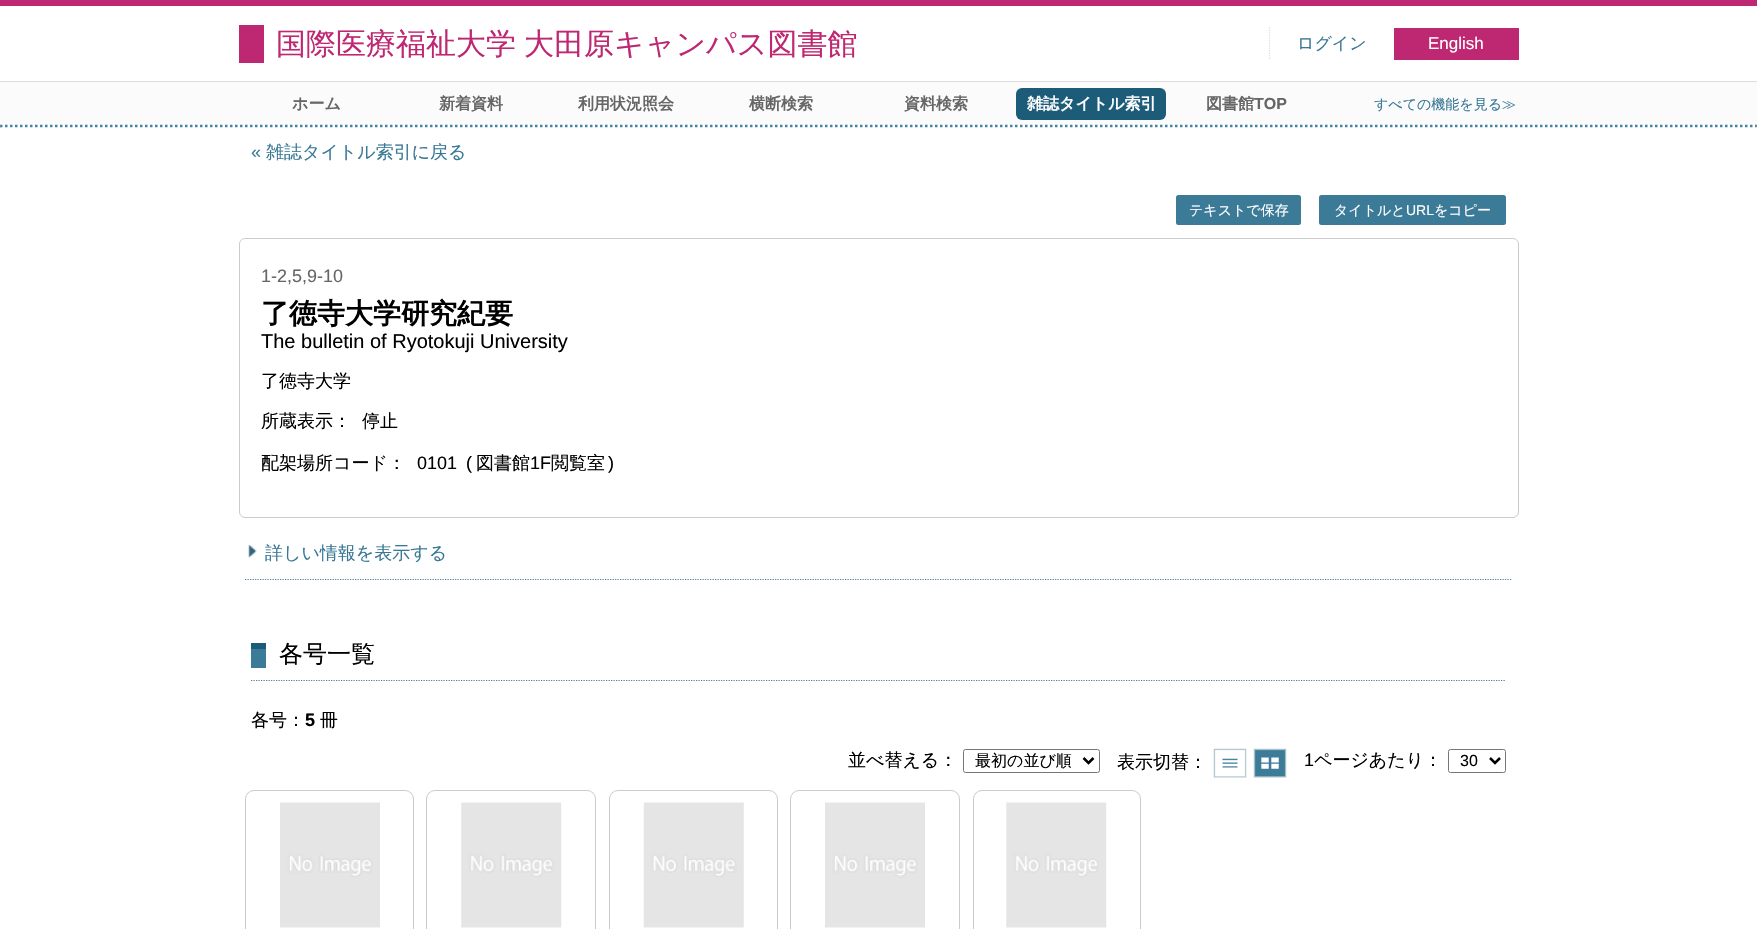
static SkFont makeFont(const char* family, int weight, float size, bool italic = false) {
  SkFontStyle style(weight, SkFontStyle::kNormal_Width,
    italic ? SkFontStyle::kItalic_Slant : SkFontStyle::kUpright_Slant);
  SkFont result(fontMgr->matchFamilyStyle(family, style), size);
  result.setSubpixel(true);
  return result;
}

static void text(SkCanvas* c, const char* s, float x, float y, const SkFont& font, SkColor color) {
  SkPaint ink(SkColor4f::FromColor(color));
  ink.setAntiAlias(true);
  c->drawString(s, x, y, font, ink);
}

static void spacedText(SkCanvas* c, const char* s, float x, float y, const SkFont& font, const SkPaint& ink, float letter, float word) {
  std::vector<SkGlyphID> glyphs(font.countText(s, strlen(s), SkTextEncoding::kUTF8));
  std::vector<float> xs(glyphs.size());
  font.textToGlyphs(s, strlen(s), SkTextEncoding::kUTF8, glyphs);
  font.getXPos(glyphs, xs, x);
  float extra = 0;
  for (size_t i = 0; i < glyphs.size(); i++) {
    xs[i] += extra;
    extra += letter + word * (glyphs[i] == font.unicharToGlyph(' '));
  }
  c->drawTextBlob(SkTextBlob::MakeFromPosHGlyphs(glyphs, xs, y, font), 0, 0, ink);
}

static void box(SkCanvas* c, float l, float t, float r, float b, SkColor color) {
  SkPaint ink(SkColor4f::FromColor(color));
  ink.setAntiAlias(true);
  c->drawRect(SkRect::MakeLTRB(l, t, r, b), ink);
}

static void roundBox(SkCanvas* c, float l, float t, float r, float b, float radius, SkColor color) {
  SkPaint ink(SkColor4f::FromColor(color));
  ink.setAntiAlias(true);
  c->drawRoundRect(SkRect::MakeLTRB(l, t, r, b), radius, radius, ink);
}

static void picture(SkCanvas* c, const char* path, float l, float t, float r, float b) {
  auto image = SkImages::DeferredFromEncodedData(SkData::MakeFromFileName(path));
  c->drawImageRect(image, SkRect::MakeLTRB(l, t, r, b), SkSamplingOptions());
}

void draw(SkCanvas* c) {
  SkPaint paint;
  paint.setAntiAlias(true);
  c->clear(0xffffffff);
  box(c, 0, 0, 1757, 6, 0xffbe2772);
  box(c, 239, 25, 264, 63, 0xffbe2772);
  SkFont face1 = makeFont("WenQuanYi Zen Hei", 500, 30);
  paint.setColor(0xffbe2772);
  spacedText(c, "国際医療福祉大学 大田原キャンパス図書館", 276, 54, face1, paint, 0, -1);
  paint.setStyle(SkPaint::kStroke_Style);
  paint.setStrokeWidth(1.2f);
  paint.setColor(0xffdddddd);
  paint.setPathEffect(SkDashPathEffect::Make({{1.25f, 1.25f}}, 0));
  c->drawPath(SkPathBuilder().moveTo(1269.5f, 27.5f).lineTo(1269.5f, 60).detach(), paint);
  paint.setPathEffect(nullptr);
  SkFont face2 = makeFont("WenQuanYi Zen Hei", 500, 17);
  text(c, "ログイン", 1297, 49, face2, 0xff387895);
  box(c, 1394, 28, 1519, 60, 0xffbe2772);
  SkFont face3 = makeFont("Liberation Sans", 400, 17);
  text(c, "English", 1428, 49, face3, 0xffffffff);
  box(c, 0, 82, 1757, 125, 0xfffbfbfb);
  box(c, 0, 81, 1757, 82, 0xffdddddd);
  SkFont face4 = makeFont("WenQuanYi Zen Hei", 700, 16);
  text(c, "ホーム", 292, 109, face4, 0xff666666);
  text(c, "新着資料", 439, 109, face4, 0xff666666);
  text(c, "利用状況照会", 578, 109, face4, 0xff666666);
  text(c, "横断検索", 749, 109, face4, 0xff666666);
  text(c, "資料検索", 904, 109, face4, 0xff666666);
  roundBox(c, 1016, 88, 1166, 120, 6, 0xff1c5c79);
  text(c, "雑誌タイトル索引", 1027, 109, face4, 0xffffffff);
  text(c, "図書館", 1206, 109, face4, 0xff666666);
  SkFont face5 = makeFont("Liberation Sans", 700, 16);
  text(c, "TOP", 1254, 109, face5, 0xff666666);
  SkFont face6 = makeFont("WenQuanYi Zen Hei", 500, 14);
  text(c, "すべての機能を見る≫", 1374, 109, face6, 0xff387895);
  paint.setStrokeWidth(2.5f);
  paint.setColor(0xff4583a1);
  paint.setPathEffect(SkDashPathEffect::Make({{2.5f, 2.5f}}, 0));
  c->drawPath(SkPathBuilder().moveTo(0, 126).lineTo(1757.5f, 126).detach(), paint);
  paint.setPathEffect(nullptr);
  paint.setStyle(SkPaint::kFill_Style);
  paint.setColor(0xffeeeeee);
  c->drawPath(SkPathBuilder().moveTo(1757.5f, 125).lineTo(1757.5f, 127.5f).lineTo(1756, 127.5f).close().detach(), paint);
  paint.setColor(0xff9f9f9f);
  c->drawPath(SkPathBuilder().moveTo(0, 127.5f).lineTo(0, 125).lineTo(1, 127.5f).close().detach(), paint);
  SkFont face7 = makeFont("Liberation Sans", 400, 18);
  text(c, "«", 251, 158, face7, 0xff387895);
  SkFont face8 = makeFont("WenQuanYi Zen Hei", 500, 18);
  text(c, "雑誌タイトル索引に戻る", 266, 158, face8, 0xff387895);
  roundBox(c, 1176, 195, 1301, 225, 2.5f, 0xff3c7b97);
  text(c, "テキストで保存", 1189, 215, face6, 0xffffffff);
  roundBox(c, 1319, 195, 1506, 225, 2.5f, 0xff3c7b97);
  text(c, "タイトルと", 1334, 215, face6, 0xffffffff);
  SkFont face9 = makeFont("Liberation Sans", 400, 14);
  text(c, "URL", 1406, 215, face9, 0xffffffff);
  text(c, "をコピー", 1434, 215, face6, 0xffffffff);
  paint.setStyle(SkPaint::kStroke_Style);
  paint.setStrokeWidth(1);
  paint.setColor(0xffcccccc);
  c->drawRoundRect(SkRect::MakeLTRB(239.5f, 238.5f, 1518.5f, 517.5f), 5.5f, 5.5f, paint);
  text(c, "1-2,5,9-10", 261, 282, face7, 0xff666666);
  SkFont face10 = makeFont("WenQuanYi Zen Hei", 700, 28);
  text(c, "了徳寺大学研究紀要", 261, 323, face10, 0xff000000);
  SkFont face11 = makeFont("Liberation Sans", 400, 20);
  text(c, "The bulletin of Ryotokuji University", 261, 348, face11, 0xff000000);
  text(c, "了徳寺大学", 261, 387, face8, 0xff000000);
  text(c, "所蔵表示：", 261, 427, face8, 0xff000000);
  text(c, "停止", 362, 427, face8, 0xff000000);
  text(c, "配架場所コード：", 261, 469, face8, 0xff000000);
  text(c, "0101", 417, 469, face7, 0xff000000);
  text(c, "(", 466, 469, face7, 0xff000000);
  text(c, "図書館", 476, 469, face8, 0xff000000);
  text(c, "1F", 530, 469, face7, 0xff000000);
  text(c, "閲覧室", 551, 469, face8, 0xff000000);
  text(c, ")", 608, 469, face7, 0xff000000);
  picture(c, "img_01.png", 248, 544, 257, 558);
  paint.setStrokeWidth(1.2f);
  paint.setColor(0xff4583a1);
  paint.setPathEffect(SkDashPathEffect::Make({{1.25f, 1.25f}}, 0));
  c->drawPath(SkPathBuilder().moveTo(245, 579.5f).lineTo(1512.5f, 579.5f).detach(), paint);
  paint.setPathEffect(nullptr);
  text(c, "詳しい情報を表示する", 265, 559, face8, 0xff387895);
  paint.setPathEffect(SkDashPathEffect::Make({{1.25f, 1.25f}}, 0));
  c->drawPath(SkPathBuilder().moveTo(251, 680.5f).lineTo(1506, 680.5f).detach(), paint);
  paint.setPathEffect(nullptr);
  box(c, 251, 649, 266, 668, 0xff3c7b97);
  box(c, 251, 643, 266, 649, 0xff1c5c79);
  SkFont face12 = makeFont("WenQuanYi Zen Hei", 500, 24);
  text(c, "各号一覧", 279, 662, face12, 0xff000000);
  text(c, "各号：", 251, 726, face8, 0xff000000);
  SkFont face13 = makeFont("Liberation Sans", 700, 18);
  text(c, "5", 305, 726, face13, 0xff000000);
  text(c, "冊", 320, 726, face8, 0xff000000);
  text(c, "並べ替える：", 848, 766, face8, 0xff000000);
  paint.setStrokeWidth(1);
  paint.setColor(0xff767676);
  c->drawRoundRect(SkRect::MakeLTRB(963.5f, 749.5f, 1099.5f, 772.5f), 2, 2, paint);
  paint.setStrokeWidth(2.5f);
  paint.setColor(0xff000000);
  c->drawPath(SkPathBuilder().moveTo(1083.5f, 758).lineTo(1088.5f, 763).lineTo(1093.5f, 758).detach(), paint);
  SkFont face14 = makeFont("WenQuanYi Zen Hei", 500, 16);
  text(c, "最初の並び順", 975, 766, face14, 0xff000000);
  text(c, "表示切替：", 1117, 768, face8, 0xff000000);
  picture(c, "img_02.png", 1213, 748, 1247, 778);
  picture(c, "img_03.png", 1253, 748, 1287, 778);
  text(c, "1", 1304, 766, face7, 0xff000000);
  text(c, "ページあたり：", 1314, 766, face8, 0xff000000);
  paint.setStrokeWidth(1);
  paint.setColor(0xff767676);
  c->drawRoundRect(SkRect::MakeLTRB(1448.5f, 749.5f, 1505.5f, 772.5f), 2, 2, paint);
  paint.setStrokeWidth(2.5f);
  paint.setColor(0xff000000);
  c->drawPath(SkPathBuilder().moveTo(1490, 758).lineTo(1495, 763).lineTo(1500, 758).detach(), paint);
  SkFont face15 = makeFont("Liberation Sans", 400, 16);
  text(c, "30", 1460, 766, face15, 0xff000000);
  paint.setStrokeWidth(1);
  paint.setColor(0xffcccccc);
  c->drawRoundRect(SkRect::MakeLTRB(245.5f, 790.5f, 413.5f, 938.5f), 8.5f, 8.5f, paint);
  picture(c, "img_04.png", 280, 802, 380, 928);
  c->drawRoundRect(SkRect::MakeLTRB(426.5f, 790.5f, 595.5f, 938.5f), 8.5f, 8.5f, paint);
  picture(c, "img_05.png", 461, 802, 562, 928);
  c->drawRoundRect(SkRect::MakeLTRB(609.5f, 790.5f, 777.5f, 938.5f), 8.5f, 8.5f, paint);
  picture(c, "img_06.png", 643, 802, 744, 928);
  c->drawRoundRect(SkRect::MakeLTRB(790.5f, 790.5f, 959.5f, 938.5f), 8.5f, 8.5f, paint);
  picture(c, "img_07.png", 825, 802, 925, 928);
  c->drawRoundRect(SkRect::MakeLTRB(973.5f, 790.5f, 1140.5f, 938.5f), 8.5f, 8.5f, paint);
  picture(c, "img_08.png", 1006, 802, 1107, 928);
}
